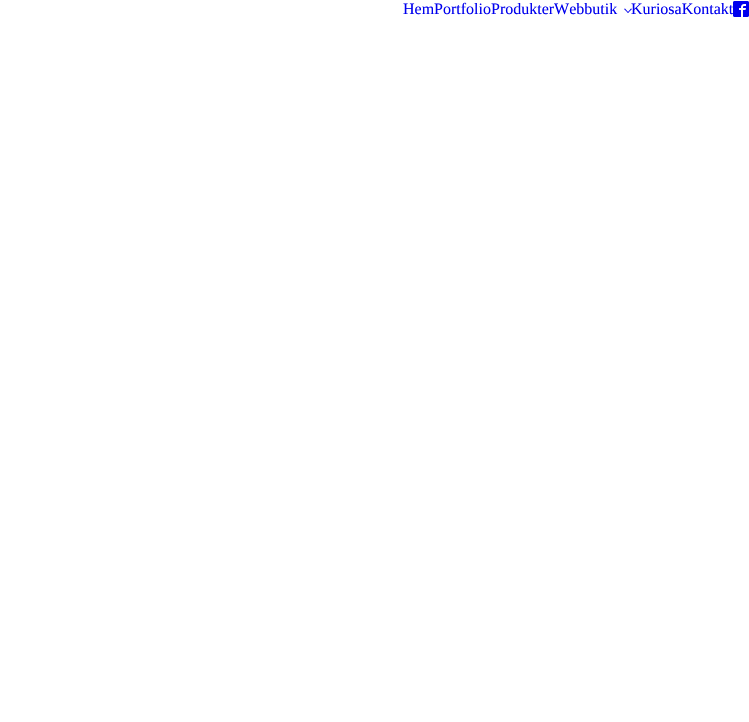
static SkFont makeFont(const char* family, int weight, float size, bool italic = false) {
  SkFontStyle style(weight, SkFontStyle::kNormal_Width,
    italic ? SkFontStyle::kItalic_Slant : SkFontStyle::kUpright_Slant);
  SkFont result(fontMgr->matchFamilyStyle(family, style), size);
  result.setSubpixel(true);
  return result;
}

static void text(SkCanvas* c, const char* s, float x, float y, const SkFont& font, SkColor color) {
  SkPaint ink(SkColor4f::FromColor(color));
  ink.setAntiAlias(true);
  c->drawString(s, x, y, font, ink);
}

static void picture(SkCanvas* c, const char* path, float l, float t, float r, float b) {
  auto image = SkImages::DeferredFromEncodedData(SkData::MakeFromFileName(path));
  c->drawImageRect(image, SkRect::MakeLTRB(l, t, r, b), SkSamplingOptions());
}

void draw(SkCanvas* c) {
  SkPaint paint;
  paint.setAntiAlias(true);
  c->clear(0xffffffff);
  SkFont face1 = makeFont("Liberation Serif", 400, 16);
  text(c, "HemPortfolioProdukterWebbutik", 403, 14, face1, 0xff0000ee);
  paint.setColor(0xff0000ee);
  c->drawPath(SkPathBuilder().moveTo(632, 9).lineTo(628, 13).lineTo(627.5f, 12.5f).lineTo(631, 8.5f).close().detach(), paint);
  c->drawPath(SkPathBuilder().moveTo(628.5f, 12.5f).lineTo(628, 13).lineTo(624, 9).lineTo(625, 8.5f).close().detach(), paint);
  text(c, "KuriosaKontakt", 631, 14, face1, 0xff0000ee);
  picture(c, "img_01.png", 733, 1, 749, 17);
}
